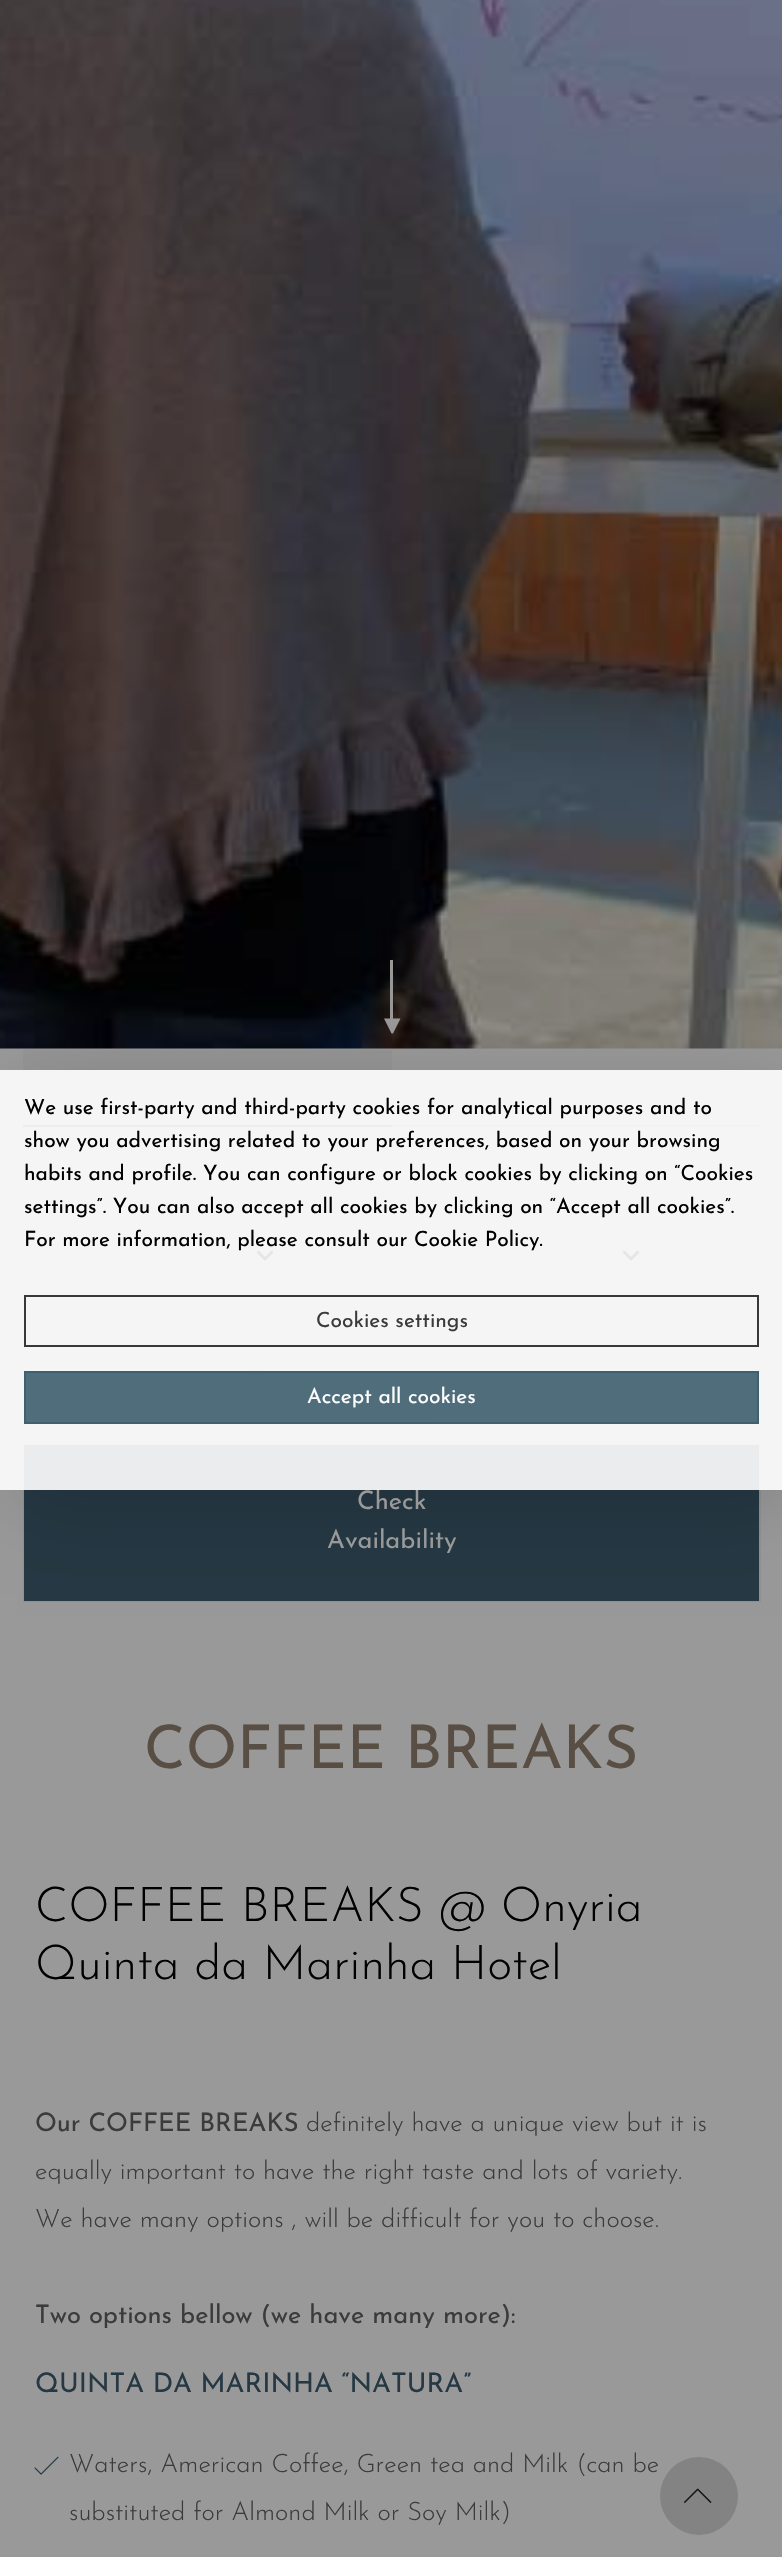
static SkFont makeFont(const char* family, int weight, float size, bool italic = false) {
  SkFontStyle style(weight, SkFontStyle::kNormal_Width,
    italic ? SkFontStyle::kItalic_Slant : SkFontStyle::kUpright_Slant);
  SkFont result(fontMgr->matchFamilyStyle(family, style), size);
  result.setSubpixel(true);
  return result;
}

static void text(SkCanvas* c, const char* s, float x, float y, const SkFont& font, SkColor color) {
  SkPaint ink(SkColor4f::FromColor(color));
  ink.setAntiAlias(true);
  c->drawString(s, x, y, font, ink);
}

static void box(SkCanvas* c, float l, float t, float r, float b, SkColor color) {
  SkPaint ink(SkColor4f::FromColor(color));
  ink.setAntiAlias(true);
  c->drawRect(SkRect::MakeLTRB(l, t, r, b), ink);
}

static void picture(SkCanvas* c, const char* path, float l, float t, float r, float b) {
  auto image = SkImages::DeferredFromEncodedData(SkData::MakeFromFileName(path));
  c->drawImageRect(image, SkRect::MakeLTRB(l, t, r, b), SkSamplingOptions());
}

void draw(SkCanvas* c) {
  SkPaint paint;
  paint.setAntiAlias(true);
  c->clear(0xff999999);
  picture(c, "img_01.png", 0, 0, 782, 1049);
  box(c, 390, 960, 393, 1020, 0xff999999);
  paint.setColor(0xff999999);
  c->drawPath(SkPathBuilder().moveTo(384, 1018.5f).lineTo(400.5f, 1018.5f).lineTo(393, 1033.5f).lineTo(391.5f, 1033.5f).close().detach(), paint);
  box(c, 23, 1050, 392, 1125, 0xff959595);
  box(c, 23, 1125, 392, 1127, 0xff253843);
  box(c, 392, 1125, 761, 1127, 0xff838383);
  paint.setStyle(SkPaint::kStroke_Style);
  paint.setStrokeWidth(2);
  paint.setColor(0xff919191);
  c->drawRect(SkRect::MakeLTRB(24, 1152, 760, 1601), paint);
  box(c, 390, 1152, 392, 1445, 0xff919191);
  picture(c, "img_02.png", 256, 1250, 274, 1261);
  box(c, 758, 1152, 759, 1295, 0xff919191);
  picture(c, "img_02.png", 622, 1250, 640, 1261);
  picture(c, "img_03.png", 247, 1370, 265, 1381);
  picture(c, "img_04.png", 247, 1396, 265, 1407);
  box(c, 434, 1421, 717, 1422, 0xff000000);
  box(c, 24, 1445, 759, 1601, 0xff253843);
  c->save();
  c->clipPath(SkPathBuilder(SkPathFillType::kEvenOdd).moveTo(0, 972).lineTo(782, 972).lineTo(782, 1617).lineTo(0, 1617).close().moveTo(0, 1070).lineTo(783, 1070).lineTo(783, 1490).lineTo(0, 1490).close().detach(), true);
  paint.setStyle(SkPaint::kFill_Style);
  paint.setColor(0x26000000);
  paint.setMaskFilter(SkMaskFilter::MakeBlur(kNormal_SkBlurStyle, 37.5f));
  c->drawRect(SkRect::MakeLTRB(17, 1086, 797, 1503), paint);
  paint.setMaskFilter(nullptr);
  c->restore();
  SkFont face1 = makeFont("Josefin Sans", 400, 25.5f);
  text(c, "Check", 357, 1509, face1, 0xff999999);
  box(c, 0, 1070, 782, 1490, 0xe6ffffff);
  SkFont face2 = makeFont("Josefin Sans", 400, 21);
  text(c, "We use first-party and third-party cookies for analytical purposes and to", 24, 1114, face2, 0xff000000);
  text(c, "show you advertising related to your preferences, based on your browsing", 24, 1147, face2, 0xff000000);
  text(c, "habits and profile. You can configure or block cookies by clicking on “Cookies", 24, 1180, face2, 0xff000000);
  text(c, "settings”. You can also accept all cookies by clicking on “Accept all cookies”.", 24, 1213, face2, 0xff000000);
  text(c, "For more information, please consult our Cookie Policy.", 24, 1246, face2, 0xff000000);
  paint.setStyle(SkPaint::kStroke_Style);
  paint.setColor(0xff383838);
  c->drawRect(SkRect::MakeLTRB(25, 1296, 758, 1346), paint);
  text(c, "Cookies settings", 316, 1327, face2, 0xff3b3b3b);
  paint.setStyle(SkPaint::kFill_Style);
  paint.setColor(0xe63e5e6f);
  c->drawRect(SkRect::MakeLTRB(25, 1372, 758, 1423), paint);
  paint.setStyle(SkPaint::kStroke_Style);
  paint.setColor(0xff405f70);
  c->drawRect(SkRect::MakeLTRB(25, 1372, 758, 1423), paint);
  text(c, "Accept all cookies", 307, 1403, face2, 0xfffefefe);
  text(c, "Availability", 327, 1548, face1, 0xff999999);
  SkFont face3 = makeFont("Josefin Sans", 400, 60);
  text(c, "COFFEE BREAKS", 144, 1768, face3, 0xff594e44);
  SkFont face4 = makeFont("Josefin Sans", 300, 48);
  text(c, "COFFEE BREAKS @ Onyria", 35, 1921, face4, 0xff000000);
  text(c, "Quinta da Marinha Hotel", 35, 1979, face4, 0xff000000);
  text(c, "Our COFFEE BREAKS", 35, 2131, face1, 0xff3b3b3b);
  SkFont face5 = makeFont("Josefin Sans", 300, 25.5f);
  text(c, "definitely have a unique view but it is", 306, 2131, face5, 0xff3b3b3b);
  text(c, "equally important to have the right taste and lots of variety.", 35, 2179, face5, 0xff3b3b3b);
  text(c, "We have many options , will be difficult for you to choose.", 35, 2227, face5, 0xff3b3b3b);
  text(c, "Two options bellow (we have many more):", 35, 2323, face1, 0xff3b3b3b);
  SkFont face6 = makeFont("Josefin Sans", 400, 27);
  text(c, "QUINTA DA MARINHA “NATURA”", 35, 2392, face6, 0xff253843);
  picture(c, "img_05.png", 34, 2456, 59, 2475);
  text(c, "Waters, American Coffee, Green tea and Milk (can be", 69, 2472, face5, 0xff3b3b3b);
  text(c, "substituted for Almond Milk or Soy Milk)", 69, 2520, face5, 0xff3b3b3b);
  paint.setStyle(SkPaint::kFill_Style);
  paint.setColor(0xff838383);
  c->drawCircle(699, 2496, 39, paint);
  picture(c, "img_06.png", 684, 2488, 712, 2503);
}
